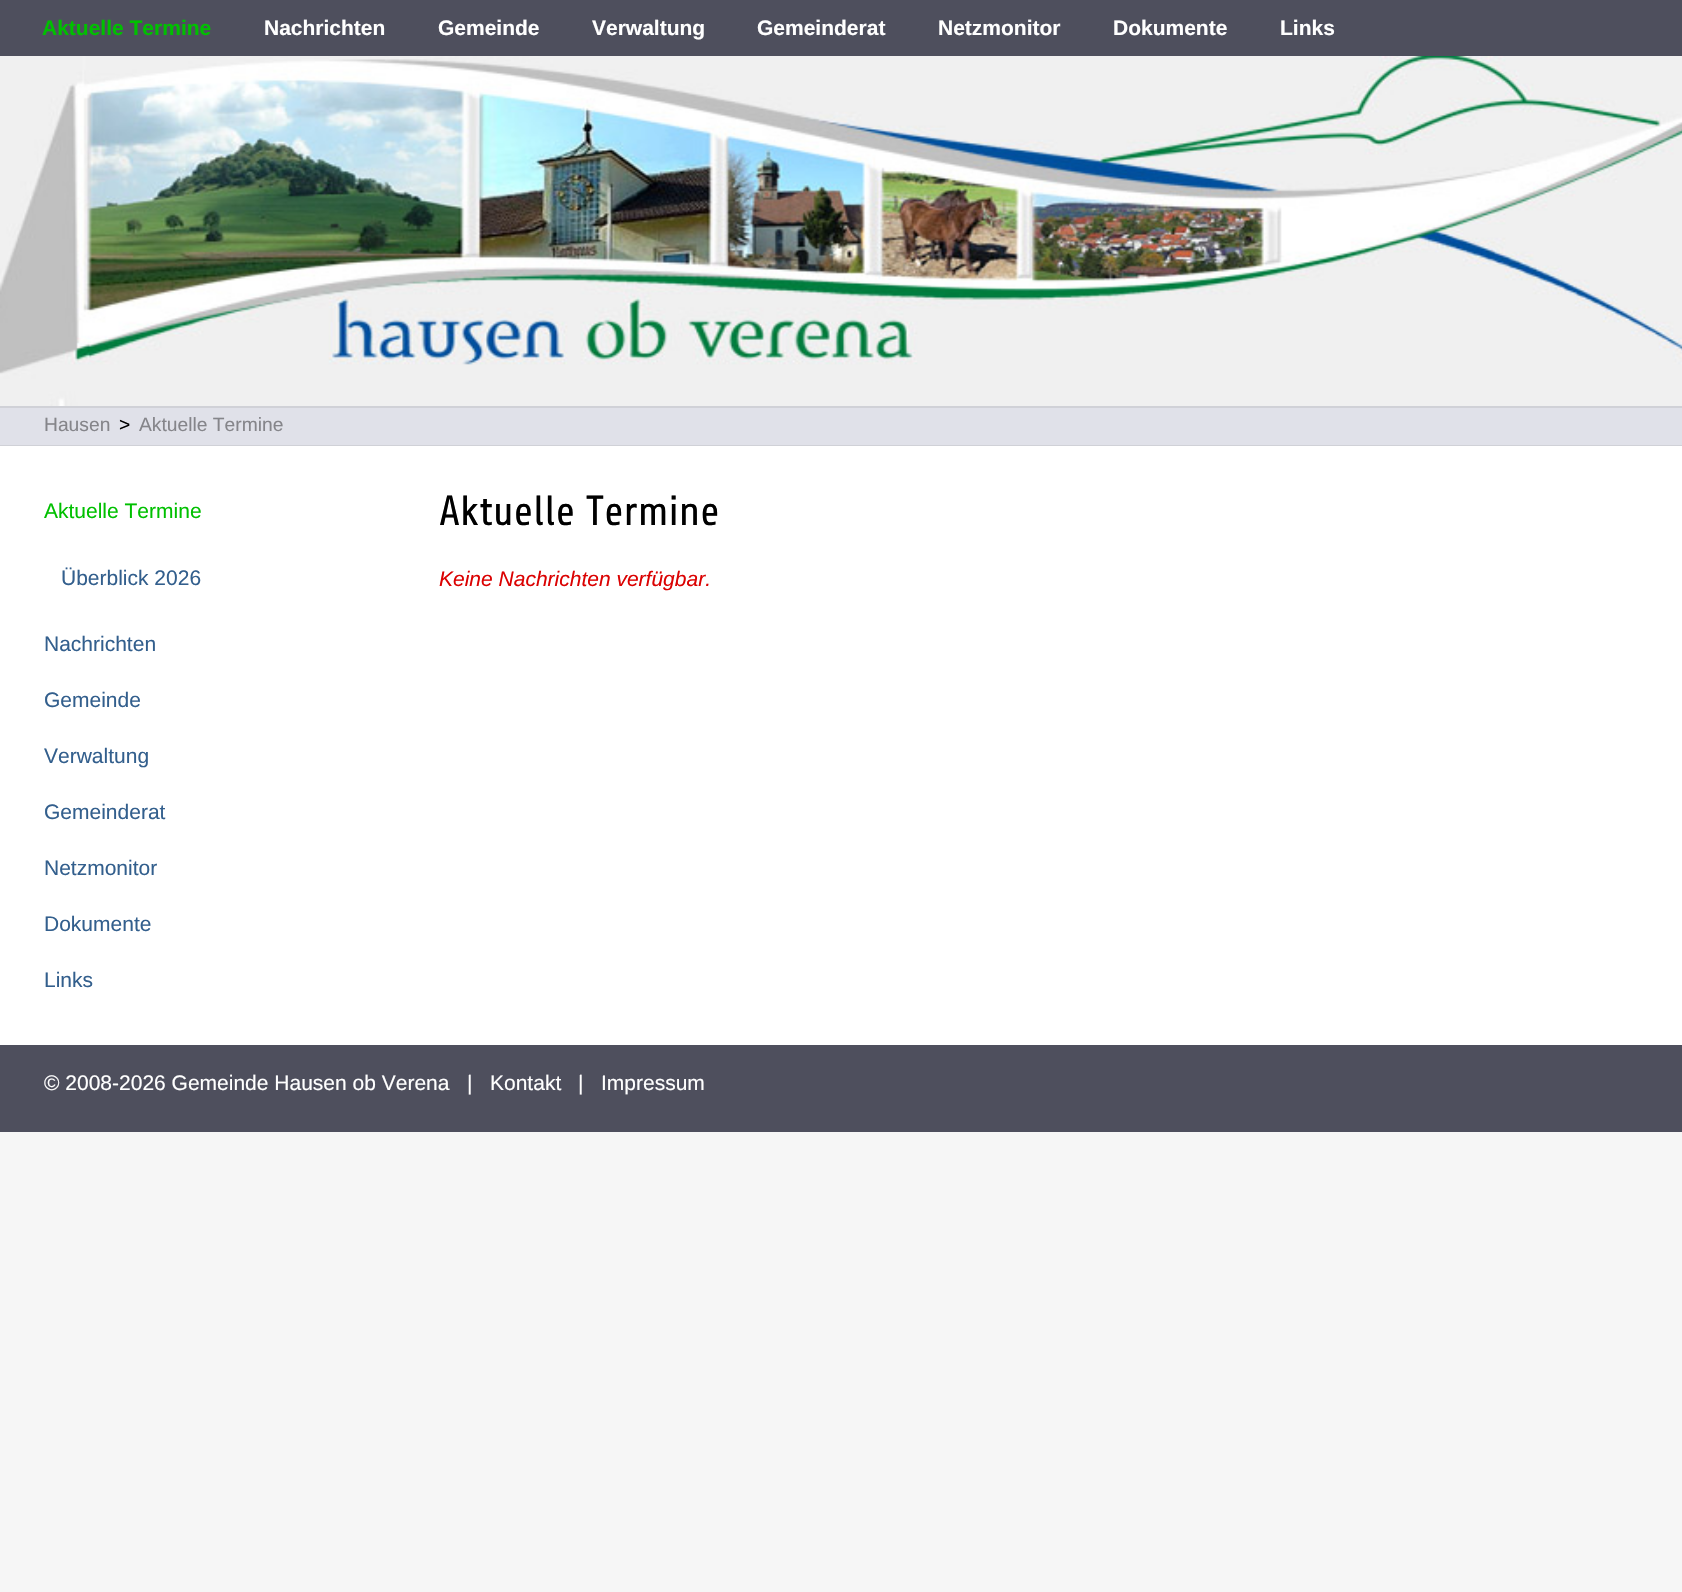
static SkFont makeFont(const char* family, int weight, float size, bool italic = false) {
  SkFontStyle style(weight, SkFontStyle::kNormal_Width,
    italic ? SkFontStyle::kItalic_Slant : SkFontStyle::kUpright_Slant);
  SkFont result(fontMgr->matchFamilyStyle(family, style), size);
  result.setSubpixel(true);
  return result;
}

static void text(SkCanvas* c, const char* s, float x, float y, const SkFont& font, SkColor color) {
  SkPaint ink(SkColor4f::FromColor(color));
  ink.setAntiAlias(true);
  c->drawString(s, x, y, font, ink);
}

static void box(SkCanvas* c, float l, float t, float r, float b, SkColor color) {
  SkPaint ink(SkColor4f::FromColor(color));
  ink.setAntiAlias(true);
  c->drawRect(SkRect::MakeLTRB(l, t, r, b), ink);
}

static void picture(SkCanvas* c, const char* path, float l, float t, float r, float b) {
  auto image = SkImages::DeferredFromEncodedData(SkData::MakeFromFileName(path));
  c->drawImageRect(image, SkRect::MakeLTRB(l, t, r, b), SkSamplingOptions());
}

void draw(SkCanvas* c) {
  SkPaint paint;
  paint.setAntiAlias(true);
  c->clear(0xfff6f6f6);
  box(c, 0, 0, 1682, 56, 0xff4e4f5d);
  SkFont face1 = makeFont("Liberation Sans", 700, 21);
  text(c, "Aktuelle Termine", 42, 35, face1, 0xff00c000);
  text(c, "Nachrichten", 264, 35, face1, 0xffffffff);
  text(c, "Gemeinde", 438, 35, face1, 0xffffffff);
  text(c, "Verwaltung", 592, 35, face1, 0xffffffff);
  text(c, "Gemeinderat", 757, 35, face1, 0xffffffff);
  text(c, "Netzmonitor", 938, 35, face1, 0xffffffff);
  text(c, "Dokumente", 1113, 35, face1, 0xffffffff);
  text(c, "Links", 1280, 35, face1, 0xffffffff);
  picture(c, "img_01.png", 0, 56, 1682, 406);
  box(c, 0, 408, 1682, 445, 0xffe0e1e9);
  box(c, 0, 406, 1682, 408, 0xffd0d1d7);
  box(c, 0, 445, 1682, 446, 0xffd0d1d7);
  SkFont face2 = makeFont("Liberation Sans", 400, 19.25f);
  text(c, "Hausen", 44, 431, face2, 0xff85858a);
  text(c, ">", 119, 431, face2, 0xff000000);
  text(c, "Aktuelle Termine", 139, 431, face2, 0xff85858a);
  box(c, 0, 446, 1682, 1045, 0xffffffff);
  SkFont face3 = makeFont("Liberation Sans", 400, 21);
  text(c, "Aktuelle Termine", 44, 518, face3, 0xff00c000);
  text(c, "Überblick 2026", 61, 585, face3, 0xff335f8d);
  text(c, "Nachrichten", 44, 651, face3, 0xff335f8d);
  text(c, "Gemeinde", 44, 707, face3, 0xff335f8d);
  text(c, "Verwaltung", 44, 763, face3, 0xff335f8d);
  text(c, "Gemeinderat", 44, 819, face3, 0xff335f8d);
  text(c, "Netzmonitor", 44, 875, face3, 0xff335f8d);
  text(c, "Dokumente", 44, 931, face3, 0xff335f8d);
  text(c, "Links", 44, 987, face3, 0xff335f8d);
  SkFont face4 = makeFont("Share", 400, 42);
  text(c, "Aktuelle Termine", 439, 525, face4, 0xff000000);
  SkFont face5 = makeFont("Liberation Sans", 400, 21, true);
  text(c, "Keine Nachrichten verfügbar.", 439, 586, face5, 0xffdb0202);
  box(c, 0, 1045, 1682, 1132, 0xff4e4f5d);
  text(c, "© 2008-2026 Gemeinde Hausen ob Verena", 44, 1090, face3, 0xffffffff);
  text(c, "|", 467, 1090, face3, 0xffffffff);
  text(c, "Kontakt", 490, 1090, face3, 0xffffffff);
  text(c, "|", 578, 1090, face3, 0xffffffff);
  text(c, "Impressum", 601, 1090, face3, 0xffffffff);
}
